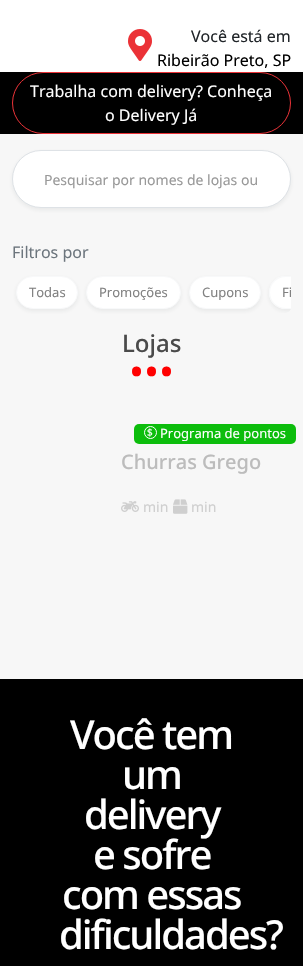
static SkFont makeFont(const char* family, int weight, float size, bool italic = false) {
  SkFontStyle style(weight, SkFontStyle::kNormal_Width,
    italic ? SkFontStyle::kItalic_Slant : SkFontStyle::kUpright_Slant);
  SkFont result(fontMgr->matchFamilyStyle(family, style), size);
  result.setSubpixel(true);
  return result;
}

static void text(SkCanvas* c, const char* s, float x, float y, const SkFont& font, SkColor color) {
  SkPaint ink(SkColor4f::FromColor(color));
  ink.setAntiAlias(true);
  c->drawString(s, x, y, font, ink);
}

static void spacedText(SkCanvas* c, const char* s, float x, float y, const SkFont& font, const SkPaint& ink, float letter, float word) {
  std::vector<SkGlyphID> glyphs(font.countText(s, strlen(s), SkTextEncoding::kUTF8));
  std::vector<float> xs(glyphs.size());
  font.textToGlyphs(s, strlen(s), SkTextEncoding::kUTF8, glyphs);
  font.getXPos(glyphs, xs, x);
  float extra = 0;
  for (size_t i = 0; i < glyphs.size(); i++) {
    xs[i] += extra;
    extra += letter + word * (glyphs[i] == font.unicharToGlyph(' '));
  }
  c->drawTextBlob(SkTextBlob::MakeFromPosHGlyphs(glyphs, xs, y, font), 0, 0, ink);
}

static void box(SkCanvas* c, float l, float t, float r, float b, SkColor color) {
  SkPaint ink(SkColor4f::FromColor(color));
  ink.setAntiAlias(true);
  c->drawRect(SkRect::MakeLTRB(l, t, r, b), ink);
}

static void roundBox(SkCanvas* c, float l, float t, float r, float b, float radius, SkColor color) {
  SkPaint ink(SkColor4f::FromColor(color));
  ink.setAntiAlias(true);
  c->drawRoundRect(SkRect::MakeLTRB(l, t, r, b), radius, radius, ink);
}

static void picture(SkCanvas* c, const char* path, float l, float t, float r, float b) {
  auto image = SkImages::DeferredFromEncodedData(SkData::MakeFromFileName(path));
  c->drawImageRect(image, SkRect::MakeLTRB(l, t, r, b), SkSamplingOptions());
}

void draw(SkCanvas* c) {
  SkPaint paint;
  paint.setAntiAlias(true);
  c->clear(0xfff7f7f7);
  box(c, 0, 0, 303, 72, 0xffffffff);
  picture(c, "img_01.png", 128, 29, 152, 61);
  SkFont face1 = makeFont("Noto Sans", 400, 16);
  text(c, "Você está em", 191, 42, face1, 0xff212529);
  text(c, "Ribeirão Preto, SP", 157, 66, face1, 0xff000000);
  box(c, 0, 72, 303, 134, 0xff000000);
  paint.setStyle(SkPaint::kStroke_Style);
  paint.setStrokeWidth(1);
  paint.setColor(0xffeb3237);
  c->drawRoundRect(SkRect::MakeLTRB(12.5f, 72.5f, 290.5f, 133.5f), 30.5f, 30.5f, paint);
  text(c, "Trabalha com delivery? Conheça", 30, 97, face1, 0xffffffff);
  text(c, "o Delivery Já", 105, 121, face1, 0xffffffff);
  paint.setStyle(SkPaint::kFill_Style);
  paint.setColor(0x12212529);
  paint.setMaskFilter(SkMaskFilter::MakeBlur(kNormal_SkBlurStyle, 2));
  c->drawRoundRect(SkRect::MakeLTRB(12, 152, 291, 210), 29, 29, paint);
  paint.setMaskFilter(nullptr);
  paint.setColor(0xffffffff);
  c->drawRoundRect(SkRect::MakeLTRB(12.5f, 150.5f, 290.5f, 207.5f), 28.5f, 28.5f, paint);
  paint.setStyle(SkPaint::kStroke_Style);
  paint.setColor(0xffdee2e6);
  c->drawRoundRect(SkRect::MakeLTRB(12.5f, 150.5f, 290.5f, 207.5f), 28.5f, 28.5f, paint);
  SkFont face2 = makeFont("Noto Sans", 400, 14);
  text(c, "Pesquisar por nomes de lojas ou", 44, 185, face2, 0xff999999);
  text(c, "Filtros por", 12, 258, face1, 0xff6c757d);
  paint.setStyle(SkPaint::kFill_Style);
  paint.setColor(0x12212529);
  paint.setMaskFilter(SkMaskFilter::MakeBlur(kNormal_SkBlurStyle, 2));
  c->drawRoundRect(SkRect::MakeLTRB(16, 278, 78, 311), 16.5f, 16.5f, paint);
  paint.setMaskFilter(nullptr);
  paint.setColor(0xffffffff);
  c->drawRoundRect(SkRect::MakeLTRB(16.5f, 276.5f, 77.5f, 308.5f), 16, 16, paint);
  paint.setStyle(SkPaint::kStroke_Style);
  paint.setColor(0xfff8f9fa);
  c->drawRoundRect(SkRect::MakeLTRB(16.5f, 276.5f, 77.5f, 308.5f), 16, 16, paint);
  SkFont face3 = makeFont("Noto Sans", 400, 13);
  text(c, "Todas", 29, 297, face3, 0xff818181);
  paint.setStyle(SkPaint::kFill_Style);
  paint.setColor(0x12212529);
  paint.setMaskFilter(SkMaskFilter::MakeBlur(kNormal_SkBlurStyle, 2));
  c->drawRoundRect(SkRect::MakeLTRB(86, 278, 181, 311), 16.5f, 16.5f, paint);
  paint.setMaskFilter(nullptr);
  paint.setColor(0xffffffff);
  c->drawRoundRect(SkRect::MakeLTRB(86.5f, 276.5f, 180.5f, 308.5f), 16, 16, paint);
  paint.setStyle(SkPaint::kStroke_Style);
  paint.setColor(0xfff8f9fa);
  c->drawRoundRect(SkRect::MakeLTRB(86.5f, 276.5f, 180.5f, 308.5f), 16, 16, paint);
  text(c, "Promoções", 99, 297, face3, 0xff818181);
  paint.setStyle(SkPaint::kFill_Style);
  paint.setColor(0x12212529);
  paint.setMaskFilter(SkMaskFilter::MakeBlur(kNormal_SkBlurStyle, 2));
  c->drawRoundRect(SkRect::MakeLTRB(189, 278, 261, 311), 16.5f, 16.5f, paint);
  paint.setMaskFilter(nullptr);
  paint.setColor(0xffffffff);
  c->drawRoundRect(SkRect::MakeLTRB(189.5f, 276.5f, 260.5f, 308.5f), 16, 16, paint);
  paint.setStyle(SkPaint::kStroke_Style);
  paint.setColor(0xfff8f9fa);
  c->drawRoundRect(SkRect::MakeLTRB(189.5f, 276.5f, 260.5f, 308.5f), 16, 16, paint);
  text(c, "Cupons", 202, 297, face3, 0xff818181);
  c->save();
  c->clipPath(SkPathBuilder().moveTo(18, 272).lineTo(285, 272).cubicTo(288.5f, 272, 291, 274.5f, 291, 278).lineTo(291, 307).cubicTo(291, 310.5f, 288.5f, 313, 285, 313).lineTo(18, 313).cubicTo(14.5f, 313, 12, 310.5f, 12, 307).lineTo(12, 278).cubicTo(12, 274.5f, 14.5f, 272, 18, 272).close().detach(), true);
  paint.setStyle(SkPaint::kFill_Style);
  paint.setColor(0x12212529);
  paint.setMaskFilter(SkMaskFilter::MakeBlur(kNormal_SkBlurStyle, 2));
  c->drawRoundRect(SkRect::MakeLTRB(269, 278, 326, 311), 16.5f, 16.5f, paint);
  paint.setMaskFilter(nullptr);
  c->restore();
  paint.setColor(0xffffffff);
  c->drawPath(SkPathBuilder().moveTo(285.5f, 276).lineTo(291, 276).lineTo(291, 309).lineTo(285.5f, 309).cubicTo(276.5f, 309, 269, 301.5f, 269, 292.5f).cubicTo(269, 283.5f, 276.5f, 276, 285.5f, 276).close().detach(), paint);
  paint.setColor(0xfff8f9fa);
  c->drawPath(SkPathBuilder().moveTo(285.5f, 276).cubicTo(267.5f, 276, 262.5f, 301, 279, 307.5f).cubicTo(283, 309.5f, 286.5f, 309, 290.5f, 309).lineTo(291, 308).lineTo(285.5f, 308).cubicTo(277, 308, 270, 301, 270, 292.5f).cubicTo(270, 284, 277, 277, 285.5f, 277).lineTo(291, 277).lineTo(290.5f, 276).close().detach(), paint);
  c->save();
  c->clipPath(SkPathBuilder().moveTo(18, 272).lineTo(285, 272).cubicTo(288.5f, 272, 291, 274.5f, 291, 278).lineTo(291, 307).cubicTo(291, 310.5f, 288.5f, 313, 285, 313).lineTo(18, 313).cubicTo(14.5f, 313, 12, 310.5f, 12, 307).lineTo(12, 278).cubicTo(12, 274.5f, 14.5f, 272, 18, 272).close().detach(), true);
  text(c, "Fi", 282, 297, face3, 0xff818181);
  c->restore();
  SkFont face4 = makeFont("Noto Sans", 500, 24);
  text(c, "Lojas", 122, 352, face4, 0xff4a4a4a);
  SkFont face5 = makeFont("Noto Sans", 400, 40);
  text(c, "•••", 129, 386, face5, 0xffff0000);
  roundBox(c, 134, 424, 296, 444, 5, 0xff0cbd0c);
  paint.setStyle(SkPaint::kStroke_Style);
  paint.setColor(0xffffffff);
  c->drawCircle(150.5f, 432.5f, 6, paint);
  SkFont face6 = makeFont("Noto Sans", 400, 10);
  text(c, "$", 147, 436, face6, 0xffffffff);
  text(c, "Programa de pontos", 160, 438, face3, 0xffffffff);
  SkFont face7 = makeFont("Noto Sans", 500, 20);
  text(c, "Churras Grego", 121, 469, face7, 0xffbcbcbc);
  picture(c, "img_02.png", 121, 501, 139, 512);
  text(c, "min", 143, 512, face2, 0xffcfcfcf);
  picture(c, "img_03.png", 173, 499, 188, 514);
  text(c, "min", 191, 512, face2, 0xffcfcfcf);
  box(c, 0, 679, 303, 966, 0xff000000);
  SkFont face8 = makeFont("Noto Sans", 500, 40);
  paint.setStyle(SkPaint::kFill_Style);
  spacedText(c, "Você tem", 70, 749, face8, paint, -2, 0);
  spacedText(c, "um", 122, 789, face8, paint, -2, 0);
  spacedText(c, "delivery", 84, 829, face8, paint, -2, 0);
  spacedText(c, "e sofre", 93, 869, face8, paint, -2, 0);
  spacedText(c, "com essas", 62, 909, face8, paint, -2, 0);
  spacedText(c, "dificuldades?", 59, 949, face8, paint, -2, 0);
}
